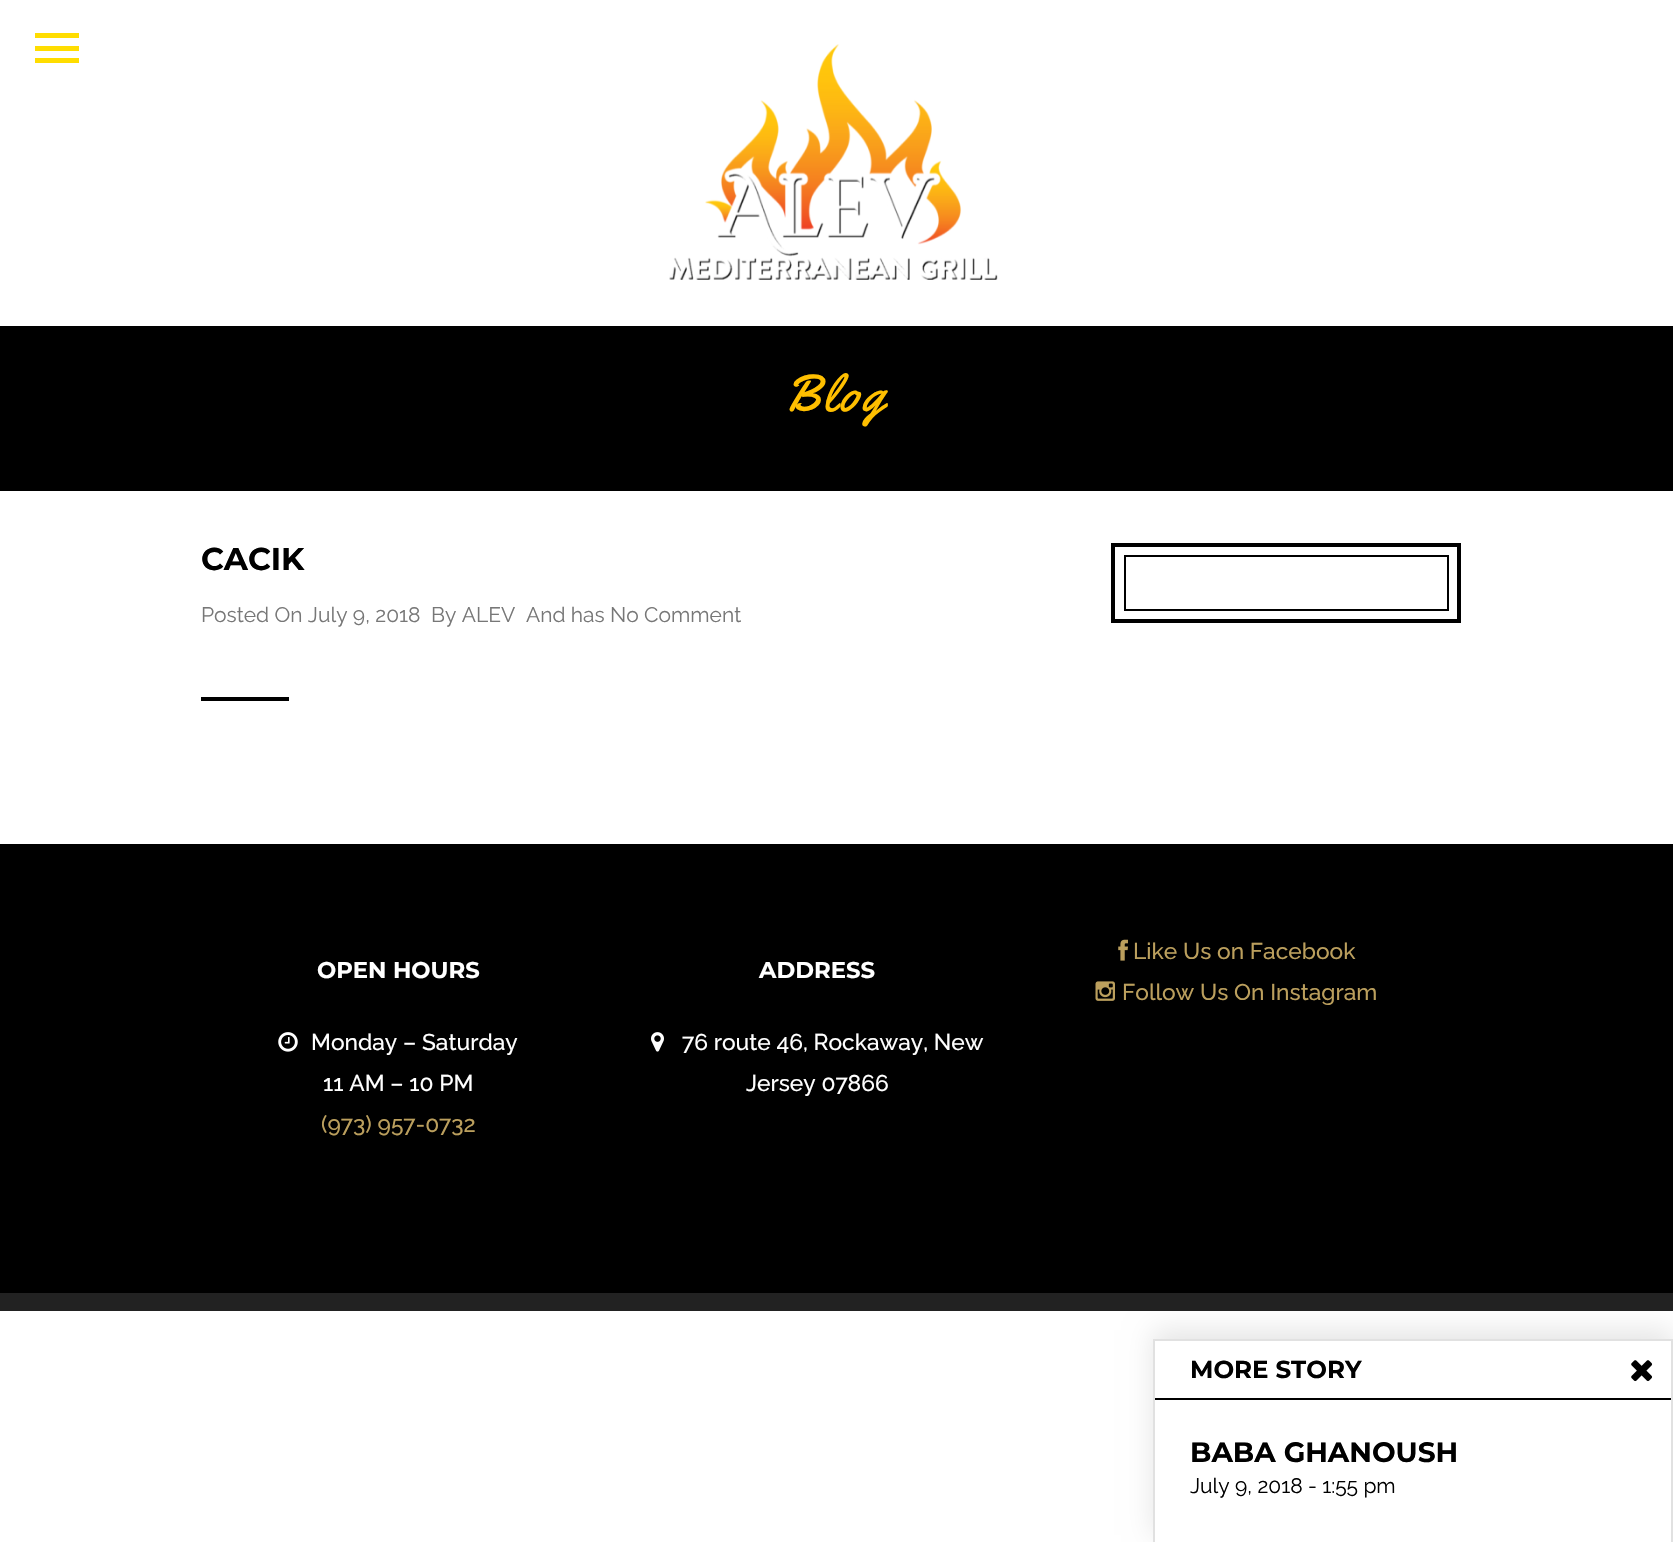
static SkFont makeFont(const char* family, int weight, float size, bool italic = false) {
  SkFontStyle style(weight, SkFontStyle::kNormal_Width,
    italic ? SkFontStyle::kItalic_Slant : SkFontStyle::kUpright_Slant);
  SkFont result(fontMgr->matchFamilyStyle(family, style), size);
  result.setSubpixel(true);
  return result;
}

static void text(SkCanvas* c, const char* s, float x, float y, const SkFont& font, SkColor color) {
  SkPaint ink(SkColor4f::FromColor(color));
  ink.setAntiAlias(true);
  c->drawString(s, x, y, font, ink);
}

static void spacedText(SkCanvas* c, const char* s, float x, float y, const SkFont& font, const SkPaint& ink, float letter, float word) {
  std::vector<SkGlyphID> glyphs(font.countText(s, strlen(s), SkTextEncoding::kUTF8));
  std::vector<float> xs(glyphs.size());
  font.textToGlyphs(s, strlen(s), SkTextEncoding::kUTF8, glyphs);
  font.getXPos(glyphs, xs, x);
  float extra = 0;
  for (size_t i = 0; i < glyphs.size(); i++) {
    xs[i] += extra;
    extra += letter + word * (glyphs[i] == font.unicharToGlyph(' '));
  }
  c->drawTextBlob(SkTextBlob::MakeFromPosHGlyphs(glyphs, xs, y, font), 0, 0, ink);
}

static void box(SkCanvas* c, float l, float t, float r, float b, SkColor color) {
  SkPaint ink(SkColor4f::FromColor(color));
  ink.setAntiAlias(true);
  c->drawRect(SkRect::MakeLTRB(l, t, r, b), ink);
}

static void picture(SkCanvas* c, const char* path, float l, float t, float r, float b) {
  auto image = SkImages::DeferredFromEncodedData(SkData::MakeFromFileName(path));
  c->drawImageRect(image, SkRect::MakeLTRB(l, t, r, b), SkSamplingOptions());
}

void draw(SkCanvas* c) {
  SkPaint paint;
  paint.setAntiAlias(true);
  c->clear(0xffffffff);
  box(c, 35, 33, 79, 38, 0xffffdd00);
  box(c, 35, 46, 79, 51, 0xffffdd00);
  box(c, 35, 58, 79, 63, 0xffffdd00);
  picture(c, "img_01.png", 669, 44, 998, 280);
  box(c, 0, 326, 1673, 491, 0xff000000);
  SkFont face1 = makeFont("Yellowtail", 400, 52);
  paint.setColor(0xffffbf00);
  spacedText(c, "Blog", 784, 411, face1, paint, 3.5f, 0);
  SkFont face2 = makeFont("Montserrat", 700, 31.5f);
  text(c, "CACIK", 201, 570, face2, 0xff000000);
  SkFont face3 = makeFont("Raleway", 400, 21);
  text(c, "Posted On July 9, 2018", 201, 622, face3, 0xff777777);
  text(c, "By ALEV", 431, 622, face3, 0xff777777);
  text(c, "And has No Comment", 526, 622, face3, 0xff777777);
  box(c, 201, 697, 289, 701, 0xff000000);
  paint.setStyle(SkPaint::kStroke_Style);
  paint.setStrokeWidth(4);
  paint.setColor(0xff000000);
  c->drawRect(SkRect::MakeLTRB(1113, 545, 1459, 621), paint);
  paint.setStrokeWidth(2);
  c->drawRect(SkRect::MakeLTRB(1125, 556, 1448, 610), paint);
  box(c, 0, 1293, 1673, 1311, 0xff222222);
  box(c, 0, 844, 1673, 1293, 0xff000000);
  paint.setStyle(SkPaint::kFill_Style);
  paint.setColor(0x1a000000);
  paint.setMaskFilter(SkMaskFilter::MakeBlur(kNormal_SkBlurStyle, 13));
  c->drawRect(SkRect::MakeLTRB(1153, 1330, 1673, 1535), paint);
  paint.setMaskFilter(nullptr);
  paint.setColor(0xffffffff);
  c->drawRect(SkRect::MakeLTRB(1154, 1340, 1672, 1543), paint);
  paint.setStyle(SkPaint::kStroke_Style);
  paint.setColor(0xffe1e1e1);
  c->drawRect(SkRect::MakeLTRB(1154, 1340, 1672, 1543), paint);
  box(c, 1155, 1398, 1671, 1400, 0xff000000);
  SkFont face4 = makeFont("Montserrat", 700, 24.5f);
  text(c, "MORE STORY", 1190, 1378, face4, 0xff000000);
  picture(c, "img_02.png", 1631, 1360, 1653, 1382);
  SkFont face5 = makeFont("Montserrat", 700, 28);
  text(c, "BABA GHANOUSH", 1190, 1462, face5, 0xff000000);
  text(c, "July 9, 2018 - 1:55 pm", 1190, 1493, face3, 0xff000000);
  picture(c, "img_03.png", 1118, 939, 1128, 961);
  SkFont face6 = makeFont("Raleway", 500, 22.75f);
  text(c, "Like Us on Facebook", 1133, 959, face6, 0xffbb9f5d);
  SkFont face7 = makeFont("Montserrat", 700, 22.75f);
  text(c, "OPEN HOURS", 317, 978, face7, 0xffffffff);
  picture(c, "img_04.png", 278, 1032, 298, 1052);
  text(c, "Monday – Saturday", 311, 1050, face6, 0xffffffff);
  text(c, "11 AM – 10 PM", 323, 1091, face6, 0xffffffff);
  text(c, "(973) 957-0732", 321, 1132, face6, 0xffbb9f5d);
  text(c, "ADDRESS", 759, 978, face7, 0xffffffff);
  picture(c, "img_05.png", 651, 1032, 664, 1052);
  text(c, "76 route 46, Rockaway, New", 682, 1050, face6, 0xffffffff);
  text(c, "Jersey 07866", 746, 1091, face6, 0xffffffff);
  picture(c, "img_06.png", 1095, 981, 1115, 1001);
  text(c, "Follow Us On Instagram", 1122, 1000, face6, 0xffbb9f5d);
}
